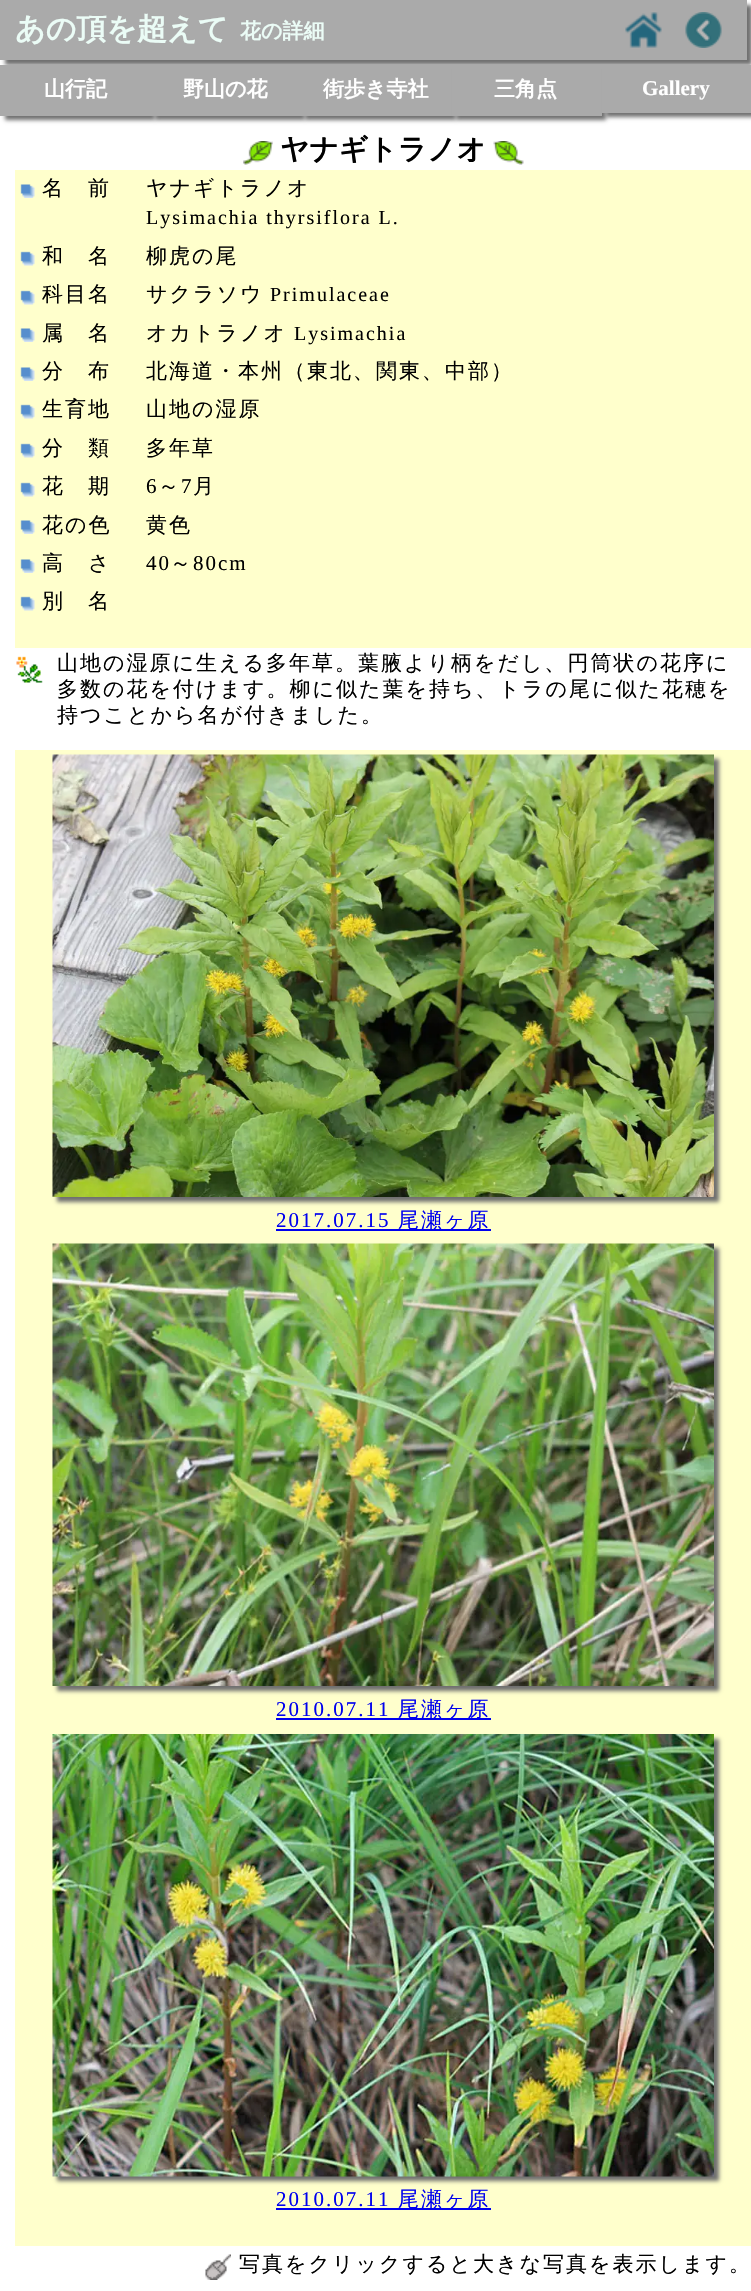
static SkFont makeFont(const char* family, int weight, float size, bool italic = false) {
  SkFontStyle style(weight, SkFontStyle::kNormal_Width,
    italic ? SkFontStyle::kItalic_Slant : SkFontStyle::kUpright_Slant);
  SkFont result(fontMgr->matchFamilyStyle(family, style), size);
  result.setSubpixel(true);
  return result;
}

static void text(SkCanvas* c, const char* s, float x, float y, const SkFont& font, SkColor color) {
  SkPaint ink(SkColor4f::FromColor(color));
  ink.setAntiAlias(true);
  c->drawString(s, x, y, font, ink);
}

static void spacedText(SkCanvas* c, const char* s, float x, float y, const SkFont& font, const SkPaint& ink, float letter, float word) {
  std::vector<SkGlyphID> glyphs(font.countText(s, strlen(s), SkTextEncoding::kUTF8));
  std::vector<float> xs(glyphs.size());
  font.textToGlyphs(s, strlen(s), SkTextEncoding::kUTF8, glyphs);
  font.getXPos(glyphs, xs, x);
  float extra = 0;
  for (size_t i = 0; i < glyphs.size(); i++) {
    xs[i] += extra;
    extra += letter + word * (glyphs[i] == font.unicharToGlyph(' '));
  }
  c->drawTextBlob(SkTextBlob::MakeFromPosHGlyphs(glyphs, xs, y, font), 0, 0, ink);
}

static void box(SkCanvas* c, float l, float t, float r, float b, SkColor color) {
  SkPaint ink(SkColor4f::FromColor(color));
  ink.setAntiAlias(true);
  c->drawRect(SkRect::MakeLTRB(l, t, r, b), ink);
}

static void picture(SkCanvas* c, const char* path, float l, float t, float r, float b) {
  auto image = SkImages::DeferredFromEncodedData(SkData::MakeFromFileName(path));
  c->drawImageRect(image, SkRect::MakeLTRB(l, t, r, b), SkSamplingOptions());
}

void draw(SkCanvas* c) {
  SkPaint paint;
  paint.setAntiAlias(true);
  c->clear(0xffffffff);
  paint.setColor(0xff707070);
  paint.setMaskFilter(SkMaskFilter::MakeBlur(kNormal_SkBlurStyle, 2));
  c->drawRect(SkRect::MakeLTRB(5, 5, 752, 65), paint);
  paint.setMaskFilter(nullptr);
  box(c, 0, 0, 747, 60, 0xffaaaaaa);
  SkFont face1 = makeFont("WenQuanYi Zen Hei", 700, 30);
  text(c, "あの頂を超えて", 15, 39, face1, 0xffebfcf6);
  SkFont face2 = makeFont("WenQuanYi Zen Hei", 700, 21);
  text(c, "花の詳細", 240, 38, face2, 0xffebfcf6);
  picture(c, "img_01.png", 625, 12, 662, 48);
  picture(c, "img_02.png", 685, 12, 722, 48);
  paint.setMaskFilter(SkMaskFilter::MakeBlur(kNormal_SkBlurStyle, 2));
  c->drawRect(SkRect::MakeLTRB(5, 69, 155, 120), paint);
  paint.setMaskFilter(nullptr);
  box(c, 0, 65, 150, 116, 0xffaaaaaa);
  text(c, "山行記", 44, 96, face2, 0xffffffff);
  paint.setMaskFilter(SkMaskFilter::MakeBlur(kNormal_SkBlurStyle, 2));
  c->drawRect(SkRect::MakeLTRB(155, 69, 305, 120), paint);
  paint.setMaskFilter(nullptr);
  box(c, 150, 65, 300, 116, 0xffaaaaaa);
  text(c, "野山の花", 183, 96, face2, 0xffffffff);
  paint.setMaskFilter(SkMaskFilter::MakeBlur(kNormal_SkBlurStyle, 2));
  c->drawRect(SkRect::MakeLTRB(305, 69, 456, 120), paint);
  paint.setMaskFilter(nullptr);
  box(c, 300, 65, 452, 116, 0xffaaaaaa);
  text(c, "街歩き寺社", 323, 96, face2, 0xffffffff);
  paint.setMaskFilter(SkMaskFilter::MakeBlur(kNormal_SkBlurStyle, 2));
  c->drawRect(SkRect::MakeLTRB(456, 69, 606, 120), paint);
  paint.setMaskFilter(nullptr);
  box(c, 452, 65, 602, 116, 0xffaaaaaa);
  text(c, "三角点", 494, 96, face2, 0xffffffff);
  paint.setMaskFilter(SkMaskFilter::MakeBlur(kNormal_SkBlurStyle, 2));
  c->drawRect(SkRect::MakeLTRB(606, 69, 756, 117), paint);
  paint.setMaskFilter(nullptr);
  box(c, 602, 65, 751, 113, 0xffaaaaaa);
  SkFont face3 = makeFont("Liberation Serif", 700, 21);
  text(c, "Gallery", 642, 95, face3, 0xffffffff);
  picture(c, "img_03.png", 243, 141, 273, 165);
  SkFont face4 = makeFont("WenQuanYi Zen Hei", 700, 28.75f);
  text(c, "ヤナギトラノオ", 280, 159, face4, 0xff000000);
  picture(c, "img_04.png", 493, 141, 524, 165);
  box(c, 15, 170, 751, 648, 0xffffffcc);
  picture(c, "img_05.png", 20, 184, 35, 198);
  SkFont face5 = makeFont("WenQuanYi Zen Hei", 500, 21);
  paint.setColor(0xff000000);
  spacedText(c, "名　前", 42, 195, face5, paint, 2, 0);
  spacedText(c, "ヤナギトラノオ", 146, 195, face5, paint, 2, 0);
  SkFont face6 = makeFont("Liberation Serif", 400, 20);
  spacedText(c, "Lysimachia thyrsiflora L.", 146, 224, face6, paint, 2, 0);
  picture(c, "img_06.png", 20, 251, 35, 266);
  spacedText(c, "和　名", 42, 263, face5, paint, 2, 0);
  spacedText(c, "柳虎の尾", 146, 263, face5, paint, 2, 0);
  picture(c, "img_06.png", 20, 290, 35, 305);
  spacedText(c, "科目名", 42, 301, face5, paint, 2, 0);
  spacedText(c, "サクラソウ", 146, 301, face5, paint, 2, 0);
  spacedText(c, "Primulaceae", 270, 301, face6, paint, 2, 0);
  picture(c, "img_05.png", 20, 328, 35, 342);
  spacedText(c, "属　名", 42, 340, face5, paint, 2, 0);
  spacedText(c, "オカトラノオ", 146, 340, face5, paint, 2, 0);
  spacedText(c, "Lysimachia", 294, 340, face6, paint, 2, 0);
  picture(c, "img_05.png", 20, 367, 35, 381);
  spacedText(c, "分　布", 42, 378, face5, paint, 2, 0);
  spacedText(c, "北海道・本州（東北、関東、中部）", 146, 378, face5, paint, 2, 0);
  picture(c, "img_06.png", 20, 404, 35, 419);
  spacedText(c, "生育地", 42, 416, face5, paint, 2, 0);
  spacedText(c, "山地の湿原", 146, 416, face5, paint, 2, 0);
  picture(c, "img_06.png", 20, 443, 35, 458);
  spacedText(c, "分　類", 42, 455, face5, paint, 2, 0);
  spacedText(c, "多年草", 146, 455, face5, paint, 2, 0);
  picture(c, "img_06.png", 20, 482, 35, 497);
  spacedText(c, "花　期", 42, 493, face5, paint, 2, 0);
  SkFont face7 = makeFont("Liberation Serif", 400, 21);
  spacedText(c, "6", 146, 493, face7, paint, 2, 0);
  spacedText(c, "～", 158, 493, face5, paint, 2, 0);
  spacedText(c, "7", 181, 493, face7, paint, 2, 0);
  spacedText(c, "月", 193, 493, face5, paint, 2, 0);
  picture(c, "img_05.png", 20, 520, 35, 534);
  spacedText(c, "花の色", 42, 532, face5, paint, 2, 0);
  spacedText(c, "黄色", 146, 532, face5, paint, 2, 0);
  picture(c, "img_05.png", 20, 559, 35, 573);
  spacedText(c, "高　さ", 42, 570, face5, paint, 2, 0);
  spacedText(c, "40", 146, 570, face7, paint, 2, 0);
  spacedText(c, "～", 170, 570, face5, paint, 2, 0);
  spacedText(c, "80cm", 193, 570, face7, paint, 2, 0);
  picture(c, "img_06.png", 20, 596, 35, 611);
  spacedText(c, "別　名", 42, 608, face5, paint, 2, 0);
  picture(c, "img_07.png", 16, 656, 43, 683);
  spacedText(c, "山地の湿原に生える多年草。葉腋より柄をだし、円筒状の花序に", 57, 670, face5, paint, 2, 0);
  spacedText(c, "多数の花を付けます。柳に似た葉を持ち、トラの尾に似た花穂を", 57, 696, face5, paint, 2, 0);
  spacedText(c, "持つことから名が付きました。", 57, 722, face5, paint, 2, 0);
  box(c, 15, 750, 751, 2246, 0xffffffcc);
  paint.setColor(0xff707070);
  paint.setMaskFilter(SkMaskFilter::MakeBlur(kNormal_SkBlurStyle, 2));
  c->drawRect(SkRect::MakeLTRB(57, 759, 719, 1202), paint);
  paint.setMaskFilter(nullptr);
  picture(c, "img_08.png", 52, 754, 714, 1197);
  paint.setColor(0xff0000ee);
  spacedText(c, "2017.07.15", 276, 1227, face7, paint, 2, 0);
  box(c, 276, 1229, 491, 1231, 0xff0000ee);
  spacedText(c, "尾瀬ヶ原", 398, 1227, face5, paint, 2, 0);
  paint.setColor(0xff707070);
  paint.setMaskFilter(SkMaskFilter::MakeBlur(kNormal_SkBlurStyle, 2));
  c->drawRect(SkRect::MakeLTRB(57, 1248, 719, 1691), paint);
  paint.setMaskFilter(nullptr);
  picture(c, "img_09.png", 52, 1243, 714, 1686);
  paint.setColor(0xff0000ee);
  spacedText(c, "2010.07.11", 276, 1716, face7, paint, 2, 0);
  box(c, 276, 1718, 491, 1720, 0xff0000ee);
  spacedText(c, "尾瀬ヶ原", 398, 1716, face5, paint, 2, 0);
  paint.setColor(0xff707070);
  paint.setMaskFilter(SkMaskFilter::MakeBlur(kNormal_SkBlurStyle, 2));
  c->drawRect(SkRect::MakeLTRB(57, 1739, 719, 2181), paint);
  paint.setMaskFilter(nullptr);
  picture(c, "img_10.png", 52, 1734, 714, 2177);
  paint.setColor(0xff0000ee);
  spacedText(c, "2010.07.11", 276, 2206, face7, paint, 2, 0);
  box(c, 276, 2208, 491, 2210, 0xff0000ee);
  spacedText(c, "尾瀬ヶ原", 398, 2206, face5, paint, 2, 0);
  picture(c, "img_11.png", 205, 2254, 231, 2280);
  paint.setColor(0xff000000);
  spacedText(c, "写真をクリックすると大きな写真を表示します。", 239, 2271, face5, paint, 2, 0);
}
